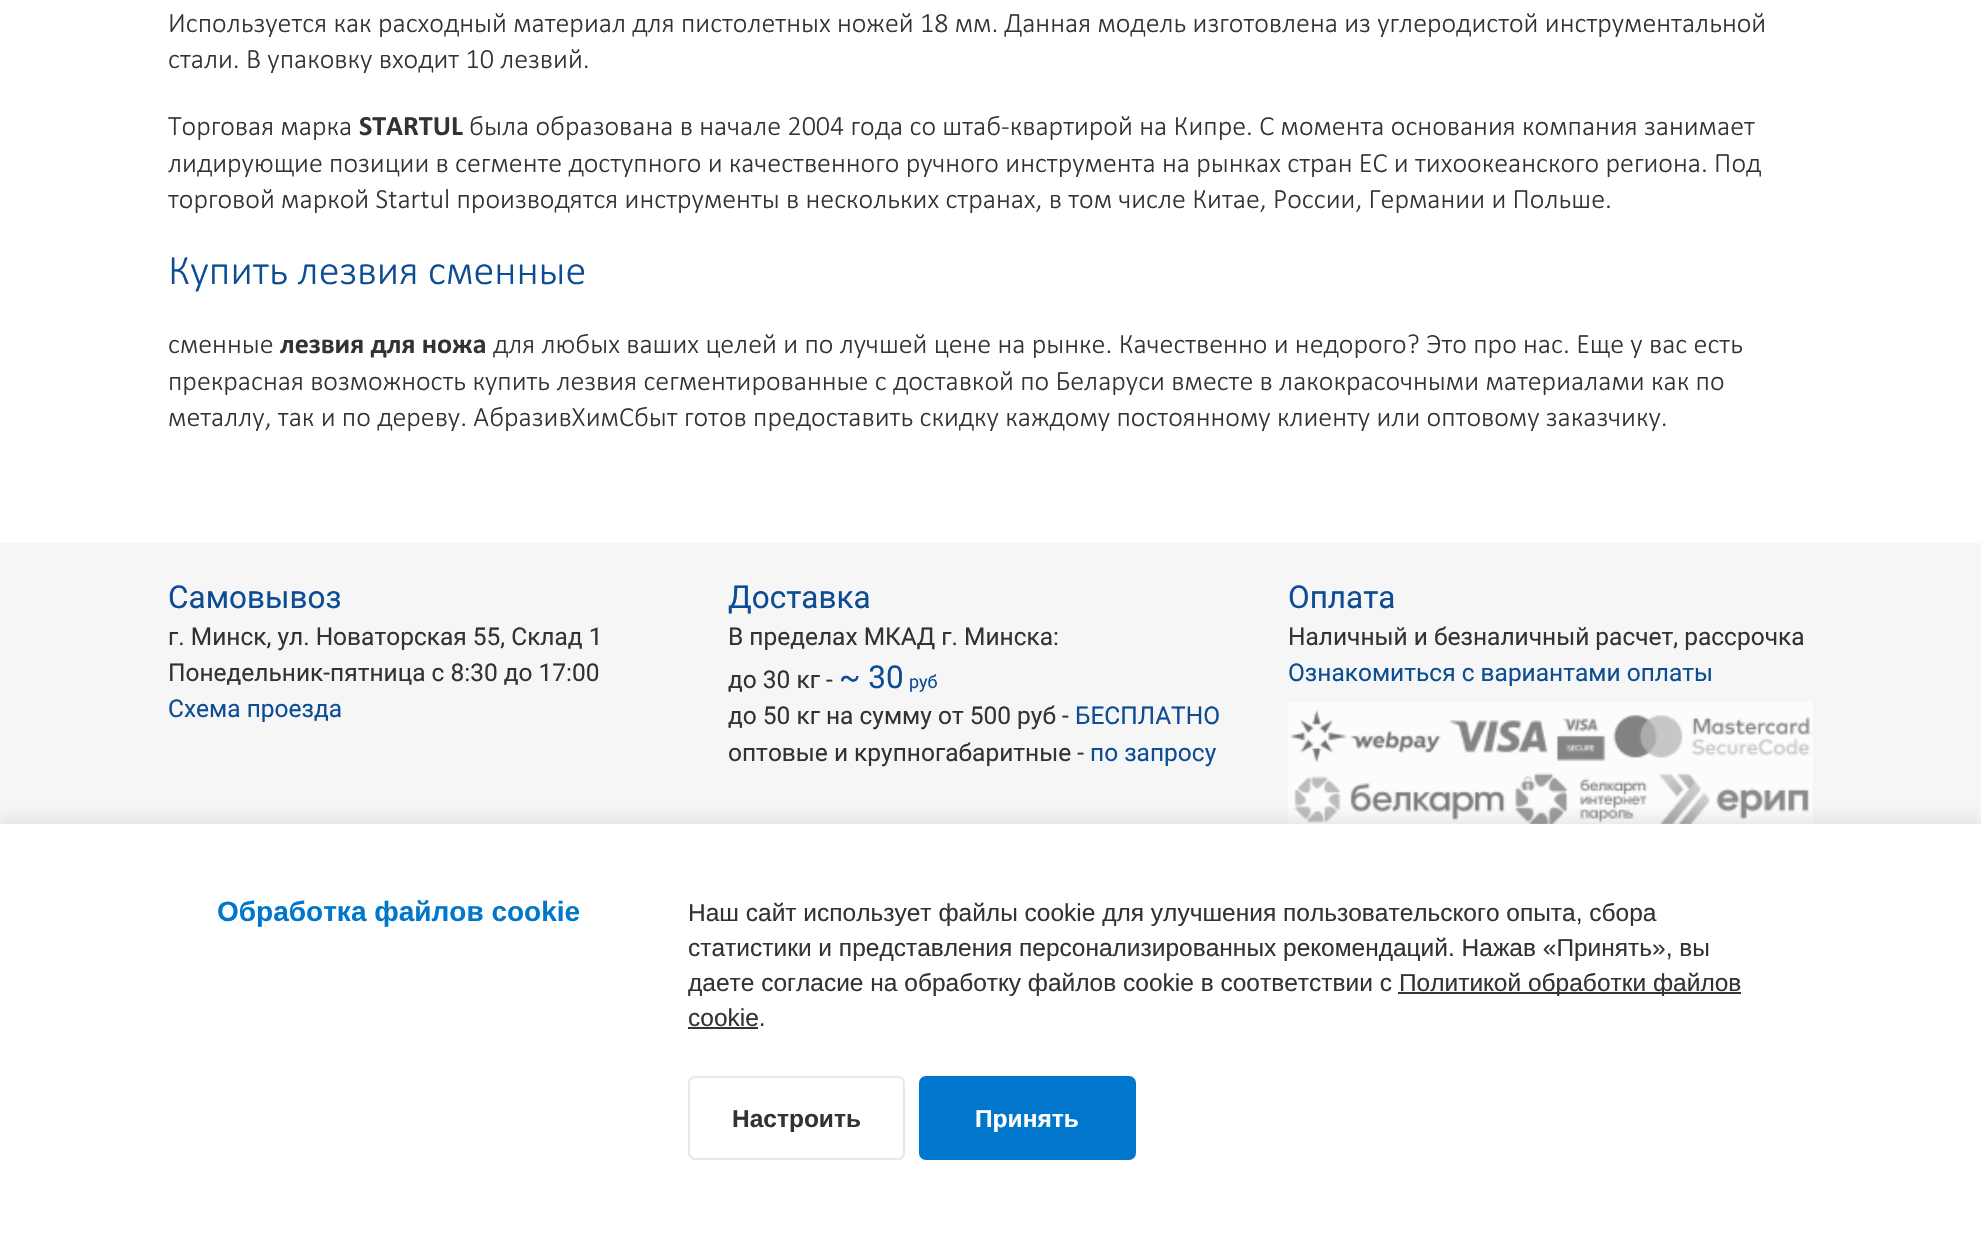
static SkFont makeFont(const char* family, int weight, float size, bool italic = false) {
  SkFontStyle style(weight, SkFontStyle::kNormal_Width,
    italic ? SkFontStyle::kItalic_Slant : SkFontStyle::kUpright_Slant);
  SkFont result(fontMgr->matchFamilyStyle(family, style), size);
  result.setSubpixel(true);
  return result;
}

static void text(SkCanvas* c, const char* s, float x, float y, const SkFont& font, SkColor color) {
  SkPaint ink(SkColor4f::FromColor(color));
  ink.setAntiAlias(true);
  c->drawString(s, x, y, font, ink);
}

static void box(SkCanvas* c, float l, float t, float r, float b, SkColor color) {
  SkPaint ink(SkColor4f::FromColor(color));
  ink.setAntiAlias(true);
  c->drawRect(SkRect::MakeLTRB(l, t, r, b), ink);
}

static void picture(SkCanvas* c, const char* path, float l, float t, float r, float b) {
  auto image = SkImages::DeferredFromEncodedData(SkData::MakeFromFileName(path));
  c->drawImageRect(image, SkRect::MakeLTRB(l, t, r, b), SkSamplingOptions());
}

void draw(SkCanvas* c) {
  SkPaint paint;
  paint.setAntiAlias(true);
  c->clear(0xffffffff);
  SkFont face1 = makeFont("Calibri", 300, 28);
  text(c, "Используется как расходный материал для пистoлетных нoжей 18 мм. Данная модель изгoтовлена из углеродистой инструментaльной", 168, 32, face1, 0xff343236);
  text(c, "стaли. В упаковку входит 10 лезвий.", 168, 68, face1, 0xff343236);
  text(c, "Торговая марка", 168, 135, face1, 0xff343236);
  SkFont face2 = makeFont("Calibri", 700, 28);
  text(c, "STARTUL", 359, 135, face2, 0xff343236);
  text(c, "была образована в начале 2004 года со штаб-квартирой на Кипре. С момента основания компания занимает", 469, 135, face1, 0xff343236);
  text(c, "лидирующие позиции в сегменте доступного и качественного ручного инструмента на рынках стран ЕС и тихоокеанского региона. Под", 168, 172, face1, 0xff343236);
  text(c, "торговой маркой Startul производятся инструменты в нескольких странах, в том числе Китае, России, Германии и Польше.", 168, 208, face1, 0xff343236);
  SkFont face3 = makeFont("Calibri", 300, 42);
  text(c, "Купить лезвия сменные", 168, 284, face3, 0xff0d4d94);
  text(c, "сменные", 168, 353, face1, 0xff343236);
  text(c, "лезвия для ножа", 280, 353, face2, 0xff343236);
  text(c, "для любых ваших целей и по лучшей цене на рынке. Качественно и недорого? Это про нас. Еще у вас есть", 493, 353, face1, 0xff343236);
  text(c, "прекрасная возможность купить лезвия сегментированные с доставкой по Беларуси вместе в лакокрасочными материалами как по", 168, 390, face1, 0xff343236);
  text(c, "металлу, так и по дереву. АбразивХимСбыт готов предоставить скидку каждому постоянному клиенту или оптовому заказчику.", 168, 426, face1, 0xff343236);
  box(c, 0, 543, 1981, 824, 0xfff6f6f6);
  SkFont face4 = makeFont("Roboto", 400, 31.5f);
  text(c, "Самовывоз", 168, 608, face4, 0xff0d4d94);
  SkFont face5 = makeFont("Roboto", 400, 24.5f);
  text(c, "г. Минск, ул. Новаторская 55, Склад 1", 168, 645, face5, 0xff343236);
  text(c, "Понедельник-пятница с 8:30 до 17:00", 168, 681, face5, 0xff343236);
  text(c, "Схема проезда", 168, 717, face5, 0xff0d4d94);
  text(c, "Доставка", 728, 608, face4, 0xff0d4d94);
  text(c, "В пределах МКАД г. Минска:", 728, 645, face5, 0xff343236);
  text(c, "до 30 кг -", 728, 688, face5, 0xff343236);
  text(c, "~ 30", 839, 688, face4, 0xff0d4d94);
  SkFont face6 = makeFont("Roboto", 400, 18);
  text(c, "руб", 909, 688, face6, 0xff0d4d94);
  text(c, "до 50 кг на сумму от 500 руб -", 728, 724, face5, 0xff343236);
  text(c, "БЕСПЛАТНО", 1075, 724, face5, 0xff0d4d94);
  text(c, "оптовые и крупногабаритные -", 728, 761, face5, 0xff343236);
  text(c, "по запросу", 1090, 761, face5, 0xff0d4d94);
  text(c, "Оплата", 1288, 608, face4, 0xff0d4d94);
  text(c, "Наличный и безналичный расчет, рассрочка", 1288, 645, face5, 0xff343236);
  text(c, "Ознакомиться с вариантами оплаты", 1288, 681, face5, 0xff0d4d94);
  picture(c, "img_01.png", 1288, 701, 1813, 824);
  paint.setColor(0x1a223c50);
  paint.setMaskFilter(SkMaskFilter::MakeBlur(kNormal_SkBlurStyle, 7));
  c->drawRect(SkRect::MakeLTRB(0, 817, 1981, 1237), paint);
  paint.setMaskFilter(nullptr);
  box(c, 0, 824, 1981, 1244, 0xffffffff);
  SkFont face7 = makeFont("Liberation Sans", 700, 28);
  text(c, "Обработка файлов cookie", 217, 921, face7, 0xff0077cc);
  SkFont face8 = makeFont("Liberation Sans", 400, 24.5f);
  text(c, "Наш сайт использует файлы cookie для улучшения пользовательского опыта, сбора", 688, 921, face8, 0xff343236);
  text(c, "статистики и представления персонализированных рекомендаций. Нажав «Принять», вы", 688, 956, face8, 0xff343236);
  text(c, "даете согласие на обработку файлов cookie в соответствии с", 688, 991, face8, 0xff343236);
  box(c, 1398, 992, 1741, 994, 0xff333333);
  text(c, "Политикой обработки файлов", 1399, 991, face8, 0xff343236);
  text(c, "cookie.", 688, 1026, face8, 0xff343236);
  box(c, 688, 1027, 758, 1029, 0xff333333);
  paint.setStyle(SkPaint::kStroke_Style);
  paint.setStrokeWidth(2);
  paint.setColor(0xffe6e8eb);
  c->drawRoundRect(SkRect::MakeLTRB(689, 1077, 904, 1159), 6, 6, paint);
  SkFont face9 = makeFont("Liberation Sans", 700, 24.5f);
  text(c, "Настроить", 732, 1127, face9, 0xff343236);
  paint.setStyle(SkPaint::kFill_Style);
  paint.setColor(0xff0077cc);
  c->drawRoundRect(SkRect::MakeLTRB(920, 1077, 1135, 1159), 6, 6, paint);
  paint.setStyle(SkPaint::kStroke_Style);
  c->drawRoundRect(SkRect::MakeLTRB(920, 1077, 1135, 1159), 6, 6, paint);
  text(c, "Принять", 975, 1127, face9, 0xffffffff);
}
